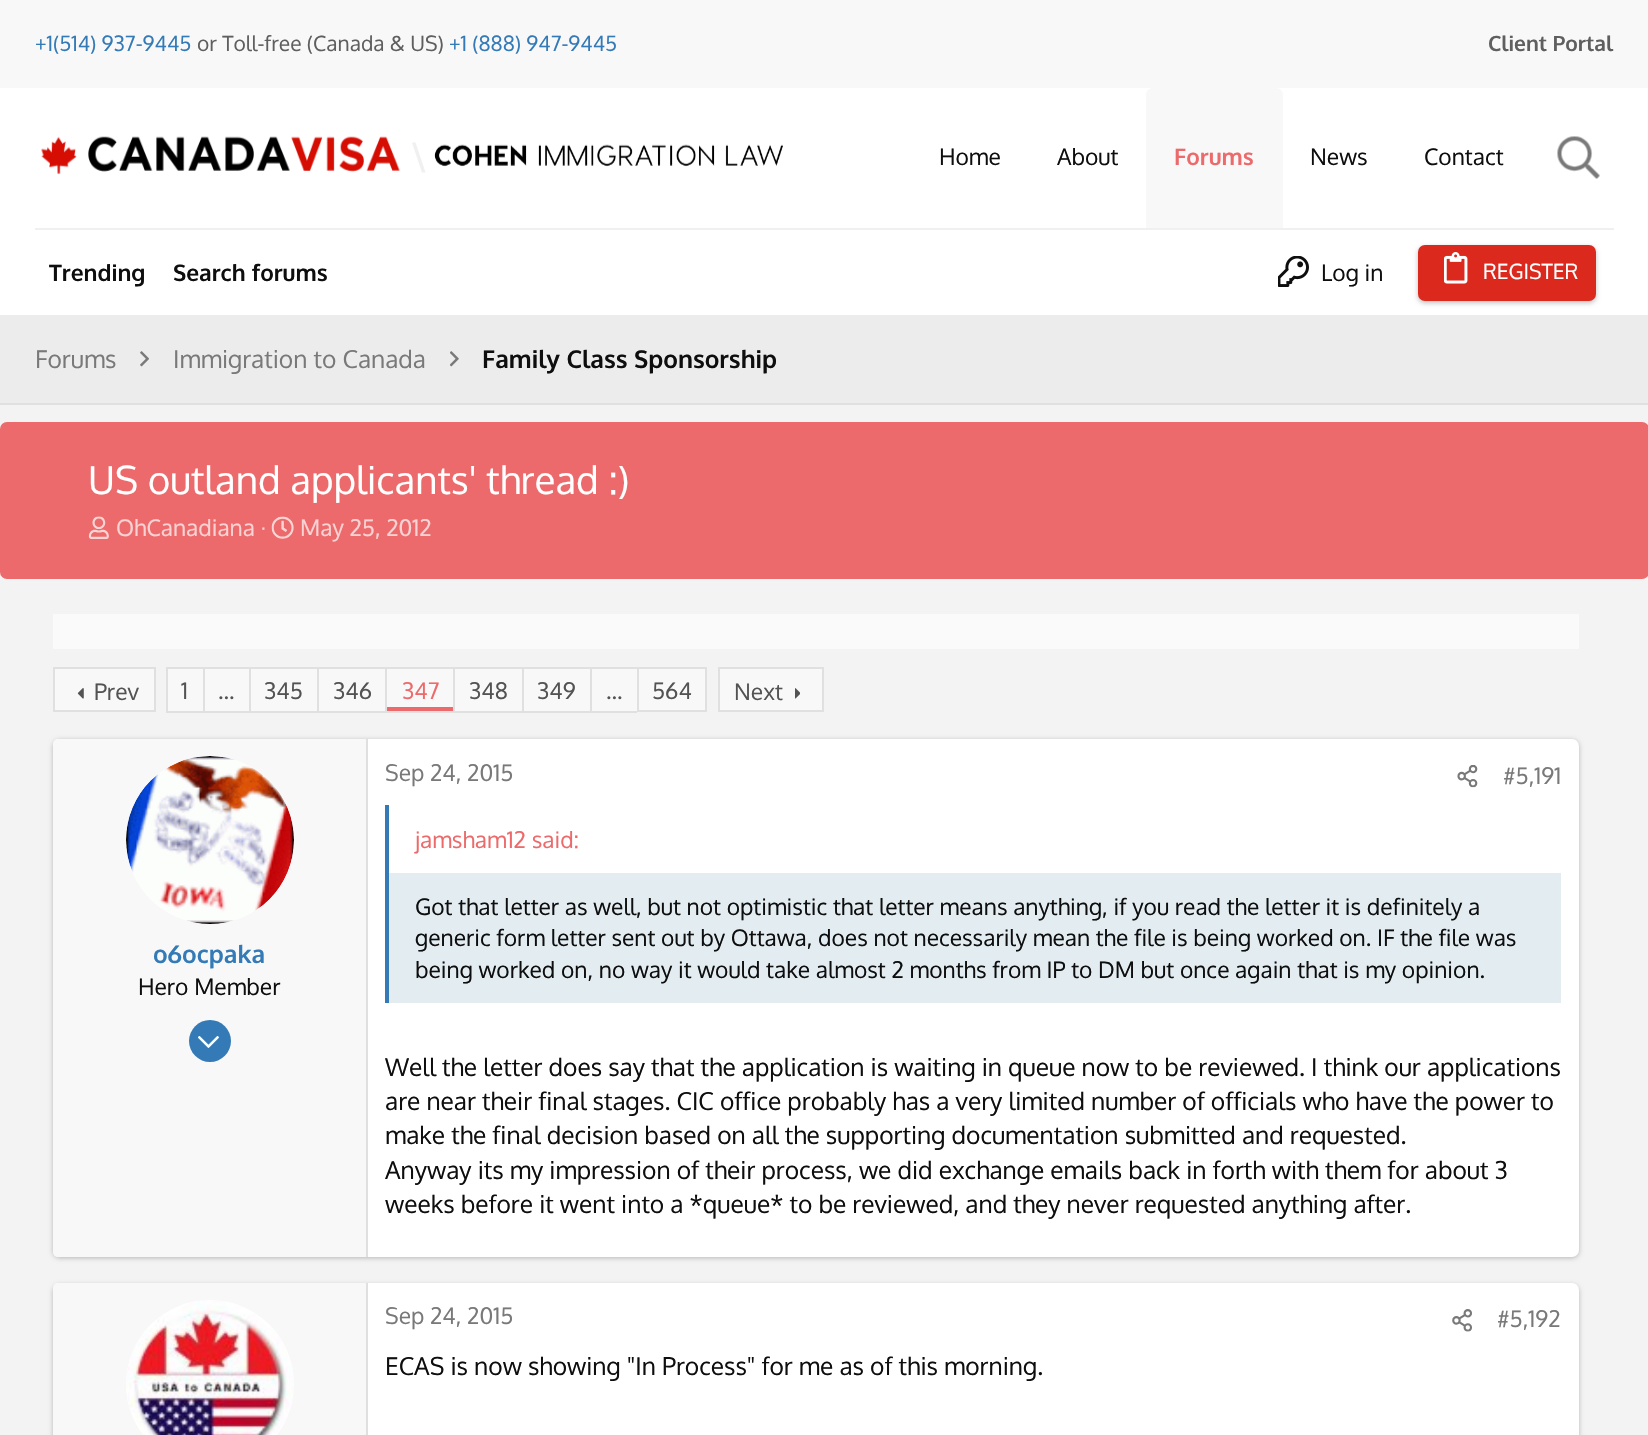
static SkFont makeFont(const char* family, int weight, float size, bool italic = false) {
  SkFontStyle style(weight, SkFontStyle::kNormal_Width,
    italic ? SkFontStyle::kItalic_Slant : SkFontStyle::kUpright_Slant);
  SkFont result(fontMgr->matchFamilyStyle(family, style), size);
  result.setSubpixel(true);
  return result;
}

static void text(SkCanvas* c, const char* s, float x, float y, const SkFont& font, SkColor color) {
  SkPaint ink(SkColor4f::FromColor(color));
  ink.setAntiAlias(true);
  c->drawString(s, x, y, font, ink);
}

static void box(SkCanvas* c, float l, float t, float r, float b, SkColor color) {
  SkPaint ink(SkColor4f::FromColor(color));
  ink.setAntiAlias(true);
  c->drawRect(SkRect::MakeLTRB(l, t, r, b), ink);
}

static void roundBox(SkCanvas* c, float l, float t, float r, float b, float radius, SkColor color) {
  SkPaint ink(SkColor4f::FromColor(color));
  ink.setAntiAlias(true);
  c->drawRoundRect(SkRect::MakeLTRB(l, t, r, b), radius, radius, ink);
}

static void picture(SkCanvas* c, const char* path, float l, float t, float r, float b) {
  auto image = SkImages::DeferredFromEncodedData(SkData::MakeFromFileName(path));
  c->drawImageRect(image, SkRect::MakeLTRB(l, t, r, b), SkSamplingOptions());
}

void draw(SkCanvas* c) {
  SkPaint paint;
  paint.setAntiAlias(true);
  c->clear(0xfff3f3f3);
  box(c, 0, 0, 1648, 88, 0xfff8f8f8);
  SkFont face1 = makeFont("Oxygen", 400, 21);
  text(c, "+1(514) 937-9445", 35, 51, face1, 0xff337ab7);
  text(c, "or Toll-free (Canada & US)", 197, 51, face1, 0xff5f5f5f);
  text(c, "+1 (888) 947-9445", 449, 51, face1, 0xff337ab7);
  SkFont face2 = makeFont("Oxygen", 700, 21);
  text(c, "Client Portal", 1488, 51, face2, 0xff5f5f5f);
  box(c, 0, 88, 1648, 315, 0xffffffff);
  picture(c, "img_01.png", 41, 136, 400, 174);
  paint.setColor(0xfff0f0f0);
  c->drawPath(SkPathBuilder().moveTo(412, 142.5f).lineTo(415.5f, 142.5f).lineTo(425.5f, 172.5f).lineTo(422, 172.5f).close().detach(), paint);
  picture(c, "img_02.png", 434, 144, 783, 167);
  SkFont face3 = makeFont("Oxygen", 400, 22.75f);
  text(c, "Home", 939, 165, face3, 0xff0e0e0e);
  text(c, "About", 1057, 165, face3, 0xff0e0e0e);
  paint.setColor(0xfff8f8f8);
  c->drawPath(SkPathBuilder().moveTo(1153, 88).lineTo(1276, 88).cubicTo(1280, 88, 1283, 91, 1283, 95).lineTo(1283, 228).lineTo(1146, 228).lineTo(1146, 95).cubicTo(1146, 91, 1149, 88, 1153, 88).close().detach(), paint);
  SkFont face4 = makeFont("Oxygen", 700, 22.75f);
  text(c, "Forums", 1174, 165, face4, 0xffec6a6b);
  text(c, "News", 1310, 165, face3, 0xff0e0e0e);
  text(c, "Contact", 1424, 165, face3, 0xff0e0e0e);
  picture(c, "img_03.png", 1557, 136, 1600, 179);
  box(c, 35, 228, 1614, 230, 0xfff0f0f0);
  text(c, "Trending", 49, 281, face4, 0xff0e0e0e);
  text(c, "Search forums", 173, 281, face4, 0xff0e0e0e);
  picture(c, "img_04.png", 1278, 256, 1309, 287);
  text(c, "Log in", 1321, 281, face3, 0xff0e0e0e);
  paint.setColor(0x40000000);
  paint.setMaskFilter(SkMaskFilter::MakeBlur(kNormal_SkBlurStyle, 2.5f));
  c->drawRoundRect(SkRect::MakeLTRB(1418, 247, 1596, 303), 7, 7, paint);
  paint.setMaskFilter(nullptr);
  roundBox(c, 1418, 245, 1596, 301, 7, 0xffdb291d);
  picture(c, "img_05.png", 1444, 252, 1468, 284);
  text(c, "REGISTER", 1483, 279, face1, 0xffffffff);
  box(c, 0, 315, 1648, 403, 0xffececec);
  box(c, 0, 403, 1648, 405, 0xffe0e0e0);
  SkFont face5 = makeFont("Oxygen", 400, 24.5f);
  text(c, "Forums", 35, 368, face5, 0xff797979);
  picture(c, "img_06.png", 140, 351, 149, 367);
  text(c, "Immigration to Canada", 173, 368, face5, 0xff797979);
  picture(c, "img_07.png", 450, 351, 459, 367);
  SkFont face6 = makeFont("Oxygen", 700, 24.5f);
  text(c, "Family Class Sponsorship", 482, 368, face6, 0xff0e0e0e);
  roundBox(c, 0, 422, 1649, 579, 7, 0xffec6a6b);
  SkFont face7 = makeFont("Oxygen", 400, 38.5f);
  text(c, "US outland applicants' thread :)", 88, 494, face7, 0xffffffff);
  picture(c, "img_08.png", 88, 516, 109, 539);
  text(c, "OhCanadiana ·", 116, 536, face3, 0xfff9d2d3);
  picture(c, "img_09.png", 271, 516, 294, 539);
  text(c, "May 25, 2012", 300, 536, face3, 0xfff9d2d3);
  box(c, 53, 614, 1579, 649, 0xfffafafa);
  paint.setColor(0xfff8f8f8);
  c->drawRect(SkRect::MakeLTRB(54, 668, 155, 711), paint);
  paint.setStyle(SkPaint::kStroke_Style);
  paint.setStrokeWidth(2);
  paint.setColor(0xffe0e0e0);
  c->drawRect(SkRect::MakeLTRB(54, 668, 155, 711), paint);
  picture(c, "img_10.png", 77, 688, 84, 699);
  text(c, "Prev", 94, 700, face3, 0xff535353);
  box(c, 168, 669, 203, 711, 0xfff8f8f8);
  box(c, 166, 667, 637, 669, 0xffe0e0e0);
  box(c, 166, 711, 637, 713, 0xffe0e0e0);
  box(c, 166, 667, 168, 712, 0xffe0e0e0);
  text(c, "1", 181, 699, face3, 0xff535353);
  box(c, 205, 669, 249, 711, 0xfff8f8f8);
  box(c, 203, 667, 205, 712, 0xffe0e0e0);
  text(c, "…", 218, 699, face3, 0xff535353);
  box(c, 251, 669, 317, 711, 0xfff8f8f8);
  box(c, 249, 667, 251, 712, 0xffe0e0e0);
  text(c, "345", 264, 699, face3, 0xff535353);
  box(c, 319, 669, 385, 711, 0xfff8f8f8);
  box(c, 317, 667, 319, 712, 0xffe0e0e0);
  text(c, "346", 333, 699, face3, 0xff535353);
  box(c, 387, 669, 453, 707, 0xfff8f8f8);
  box(c, 387, 707, 453, 711, 0xffec6a6b);
  box(c, 385, 667, 387, 712, 0xffe0e0e0);
  text(c, "347", 402, 699, face3, 0xffec6a6b);
  box(c, 455, 669, 522, 711, 0xfff8f8f8);
  box(c, 453, 667, 455, 712, 0xffe0e0e0);
  text(c, "348", 469, 699, face3, 0xff535353);
  box(c, 524, 669, 590, 711, 0xfff8f8f8);
  box(c, 522, 667, 524, 712, 0xffe0e0e0);
  text(c, "349", 537, 699, face3, 0xff535353);
  box(c, 592, 669, 637, 711, 0xfff8f8f8);
  box(c, 590, 667, 592, 712, 0xffe0e0e0);
  text(c, "…", 606, 699, face3, 0xff535353);
  paint.setStyle(SkPaint::kFill_Style);
  paint.setColor(0xfff8f8f8);
  c->drawRect(SkRect::MakeLTRB(638, 668, 706, 711), paint);
  paint.setStyle(SkPaint::kStroke_Style);
  paint.setColor(0xffe0e0e0);
  c->drawRect(SkRect::MakeLTRB(638, 668, 706, 711), paint);
  text(c, "564", 652, 699, face3, 0xff535353);
  paint.setStyle(SkPaint::kFill_Style);
  paint.setColor(0xfff8f8f8);
  c->drawRect(SkRect::MakeLTRB(719, 668, 823, 711), paint);
  paint.setStyle(SkPaint::kStroke_Style);
  paint.setColor(0xffe0e0e0);
  c->drawRect(SkRect::MakeLTRB(719, 668, 823, 711), paint);
  text(c, "Next", 734, 700, face3, 0xff535353);
  picture(c, "img_11.png", 795, 688, 800, 699);
  paint.setStyle(SkPaint::kFill_Style);
  paint.setColor(0x40000000);
  paint.setMaskFilter(SkMaskFilter::MakeBlur(kNormal_SkBlurStyle, 2.5f));
  c->drawRoundRect(SkRect::MakeLTRB(53, 740, 1579, 1258), 7, 7, paint);
  paint.setMaskFilter(nullptr);
  roundBox(c, 53, 739, 1579, 1257, 7, 0xffffffff);
  paint.setColor(0xfff8f8f8);
  c->drawPath(SkPathBuilder().moveTo(58, 739).lineTo(368, 739).lineTo(368, 1257).lineTo(58, 1257).cubicTo(55, 1257, 53, 1255, 53, 1252).lineTo(53, 744).cubicTo(53, 741, 55, 739, 58, 739).close().detach(), paint);
  box(c, 366, 739, 368, 1257, 0xffe0e0e0);
  paint.setColor(0xffffffff);
  c->drawCircle(210, 840, 84, paint);
  picture(c, "img_12.png", 126, 756, 294, 924);
  text(c, "o6ocpaka", 153, 963, face6, 0xff337ab7);
  text(c, "Hero Member", 138, 995, face3, 0xff0e0e0e);
  paint.setColor(0xff337ab7);
  c->drawCircle(210, 1041, 21, paint);
  picture(c, "img_13.png", 198, 1036, 219, 1048);
  text(c, "Sep 24, 2015", 385, 781, face3, 0xff797979);
  picture(c, "img_14.png", 1457, 765, 1478, 788);
  text(c, "#5,191", 1503, 784, face3, 0xff797979);
  box(c, 389, 873, 1561, 1003, 0xffe2ecf1);
  box(c, 385, 805, 389, 1003, 0xff337ab7);
  text(c, "jamsham12 said:", 415, 848, face3, 0xffec6a6b);
  text(c, "Got that letter as well, but not optimistic that letter means anything, if you read the letter it is definitely a", 415, 915, face3, 0xff0e0e0e);
  text(c, "generic form letter sent out by Ottawa, does not necessarily mean the file is being worked on. IF the file was", 415, 946, face3, 0xff0e0e0e);
  text(c, "being worked on, no way it would take almost 2 months from IP to DM but once again that is my opinion.", 415, 978, face3, 0xff0e0e0e);
  text(c, "Well the letter does say that the application is waiting in queue now to be reviewed. I think our applications", 385, 1076, face5, 0xff0e0e0e);
  text(c, "are near their final stages. CIC office probably has a very limited number of officials who have the power to", 385, 1110, face5, 0xff0e0e0e);
  text(c, "make the final decision based on all the supporting documentation submitted and requested.", 385, 1144, face5, 0xff0e0e0e);
  text(c, "Anyway its my impression of their process, we did exchange emails back in forth with them for about 3", 385, 1179, face5, 0xff0e0e0e);
  text(c, "weeks before it went into a *queue* to be reviewed, and they never requested anything after.", 385, 1213, face5, 0xff0e0e0e);
  paint.setColor(0x40000000);
  paint.setMaskFilter(SkMaskFilter::MakeBlur(kNormal_SkBlurStyle, 2.5f));
  c->drawRoundRect(SkRect::MakeLTRB(53, 1285, 1579, 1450), 7, 7, paint);
  paint.setMaskFilter(nullptr);
  roundBox(c, 53, 1283, 1579, 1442, 7, 0xffffffff);
  paint.setColor(0xfff8f8f8);
  c->drawPath(SkPathBuilder().moveTo(58, 1283).lineTo(368, 1283).lineTo(368, 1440).lineTo(58, 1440).cubicTo(55, 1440, 53, 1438, 53, 1435).lineTo(53, 1288).cubicTo(53, 1285, 55, 1283, 58, 1283).close().detach(), paint);
  box(c, 366, 1283, 368, 1435, 0xffe0e0e0);
  paint.setColor(0xffffffff);
  c->drawCircle(210, 1384, 84, paint);
  picture(c, "img_15.png", 126, 1301, 294, 1435);
  text(c, "Sep 24, 2015", 385, 1324, face3, 0xff797979);
  picture(c, "img_16.png", 1452, 1309, 1472, 1332);
  text(c, "#5,192", 1497, 1327, face3, 0xff797979);
  text(c, "ECAS is now showing \"In Process\" for me as of this morning.", 385, 1375, face5, 0xff0e0e0e);
}
